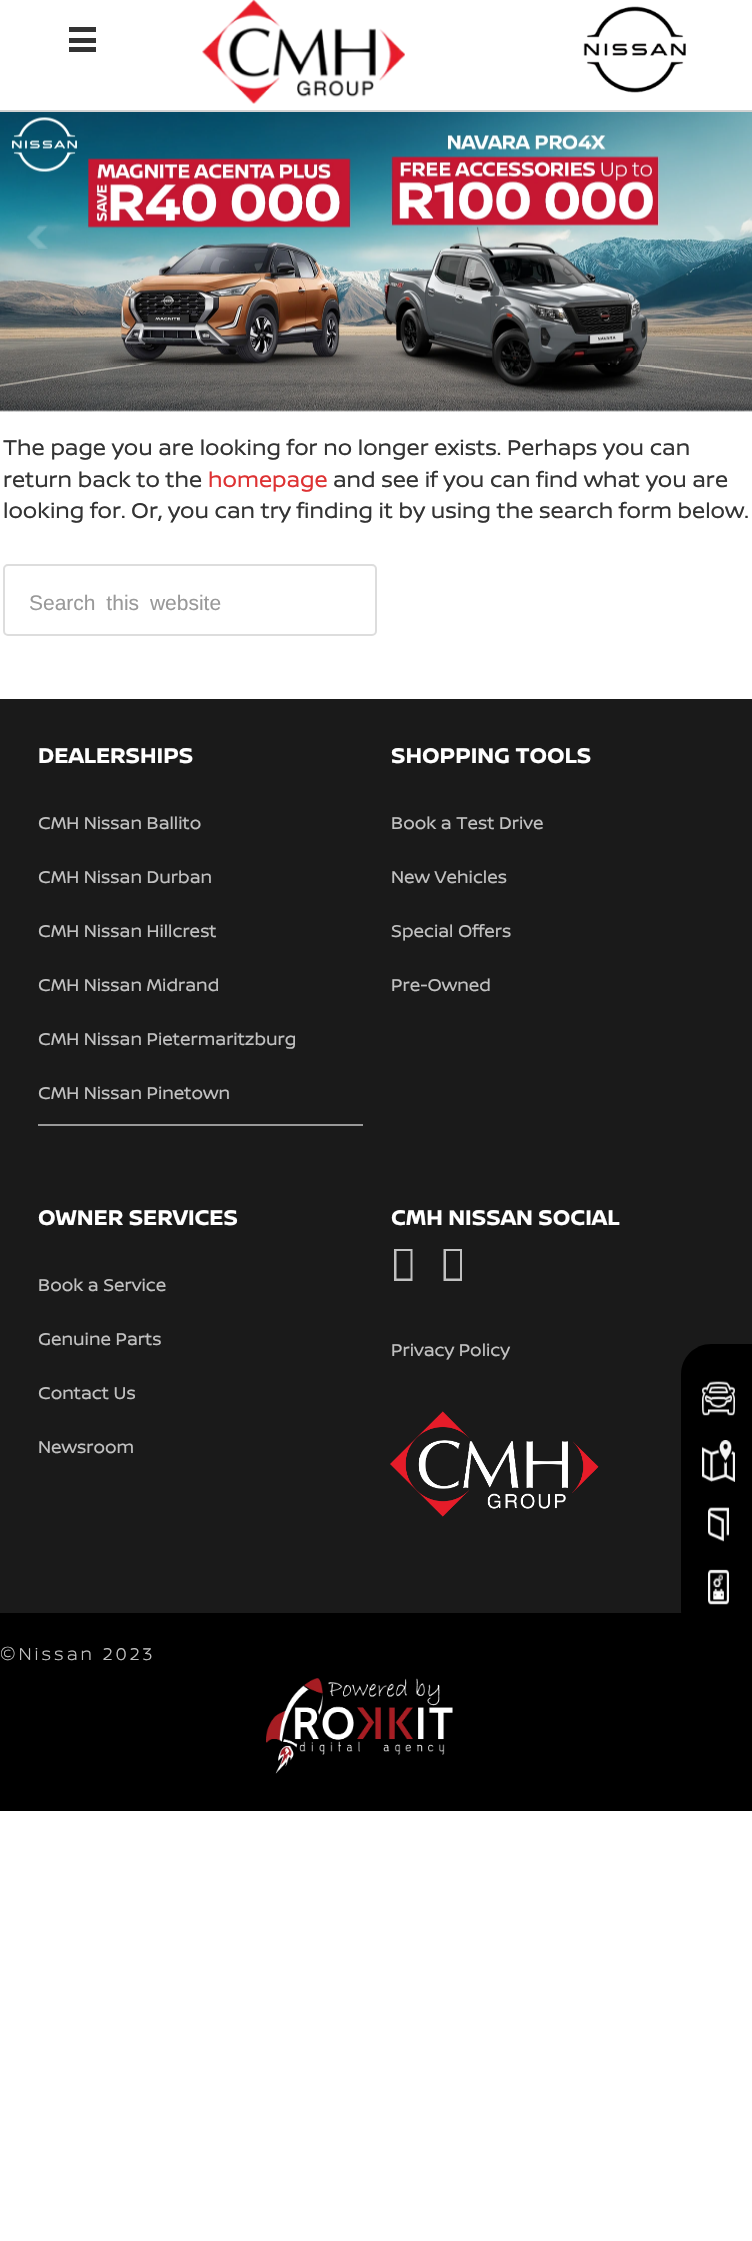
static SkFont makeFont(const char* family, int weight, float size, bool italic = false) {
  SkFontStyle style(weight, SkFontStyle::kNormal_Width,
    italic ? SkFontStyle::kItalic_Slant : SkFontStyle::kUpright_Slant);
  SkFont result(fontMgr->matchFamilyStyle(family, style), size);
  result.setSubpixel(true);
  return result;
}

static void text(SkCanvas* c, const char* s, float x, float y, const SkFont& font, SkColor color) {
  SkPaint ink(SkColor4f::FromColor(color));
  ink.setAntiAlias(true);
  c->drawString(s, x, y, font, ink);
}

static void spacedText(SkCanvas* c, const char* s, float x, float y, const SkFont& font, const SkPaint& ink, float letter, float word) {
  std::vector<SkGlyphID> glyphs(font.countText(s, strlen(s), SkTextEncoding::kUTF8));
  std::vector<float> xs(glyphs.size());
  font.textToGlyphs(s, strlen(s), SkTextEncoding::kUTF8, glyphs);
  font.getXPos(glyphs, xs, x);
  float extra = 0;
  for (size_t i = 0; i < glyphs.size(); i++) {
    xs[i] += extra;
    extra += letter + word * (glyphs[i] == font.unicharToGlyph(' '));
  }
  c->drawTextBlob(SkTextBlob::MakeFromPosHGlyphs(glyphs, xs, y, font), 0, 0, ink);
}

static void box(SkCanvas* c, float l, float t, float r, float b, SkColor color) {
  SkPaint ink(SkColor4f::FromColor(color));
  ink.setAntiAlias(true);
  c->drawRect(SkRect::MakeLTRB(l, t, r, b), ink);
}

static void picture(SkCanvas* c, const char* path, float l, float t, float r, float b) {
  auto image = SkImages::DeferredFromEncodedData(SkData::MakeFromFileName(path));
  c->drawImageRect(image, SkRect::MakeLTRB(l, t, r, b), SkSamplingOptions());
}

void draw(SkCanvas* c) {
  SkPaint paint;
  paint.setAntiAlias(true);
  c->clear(0xffffffff);
  box(c, 0, 110, 752, 112, 0xffd2d2d2);
  box(c, 69, 27, 96, 32, 0xff333333);
  box(c, 69, 38, 96, 43, 0xff333333);
  box(c, 69, 47, 96, 52, 0xff333333);
  picture(c, "img_01.png", 202, 0, 405, 104);
  picture(c, "img_02.png", 583, 6, 686, 93);
  picture(c, "img_03.png", 0, 112, 752, 412);
  picture(c, "img_04.png", 27, 225, 48, 249);
  picture(c, "img_05.png", 703, 225, 724, 249);
  SkFont face1 = makeFont("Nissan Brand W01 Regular", 400, 22.5f);
  text(c, "The page you are looking for no longer exists. Perhaps you can", 3, 455, face1, 0xff343434);
  text(c, "return back to the", 3, 487, face1, 0xff343434);
  text(c, "homepage", 208, 487, face1, 0xffde3233);
  text(c, "and see if you can find what you are", 333, 487, face1, 0xff343434);
  text(c, "looking for. Or, you can try finding it by using the search form below.", 3, 518, face1, 0xff343434);
  paint.setStyle(SkPaint::kStroke_Style);
  paint.setStrokeWidth(2);
  paint.setColor(0xffdddddd);
  c->drawRoundRect(SkRect::MakeLTRB(4, 565, 376, 635), 4, 4, paint);
  SkFont face2 = makeFont("Liberation Sans", 400, 21);
  paint.setStyle(SkPaint::kFill_Style);
  paint.setColor(0xff999999);
  spacedText(c, "Search this website", 29, 610, face2, paint, 0, 5);
  box(c, 0, 699, 752, 1613, 0xff1a1a1a);
  box(c, 0, 1613, 752, 1811, 0xff000000);
  paint.setColor(0xff000000);
  c->drawPath(SkPathBuilder().moveTo(711, 1344).lineTo(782, 1344).lineTo(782, 1641).lineTo(711, 1641).cubicTo(694.5f, 1641, 681, 1627.5f, 681, 1611).lineTo(681, 1374).cubicTo(681, 1357.5f, 694.5f, 1344, 711, 1344).close().detach(), paint);
  picture(c, "img_06.png", 702, 1381, 735, 1416);
  picture(c, "img_07.png", 702, 1440, 735, 1482);
  picture(c, "img_08.png", 708, 1507, 729, 1542);
  picture(c, "img_09.png", 708, 1569, 729, 1605);
  SkFont face3 = makeFont("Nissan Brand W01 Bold", 700, 22.5f);
  text(c, "DEALERSHIPS", 38, 763, face3, 0xffffffff);
  SkFont face4 = makeFont("Nissan Brand W01 Regular", 400, 18);
  text(c, "CMH Nissan Ballito", 38, 829, face4, 0xffc1c1c1);
  text(c, "CMH Nissan Durban", 38, 883, face4, 0xffc1c1c1);
  text(c, "CMH Nissan Hillcrest", 38, 937, face4, 0xffc1c1c1);
  text(c, "CMH Nissan Midrand", 38, 991, face4, 0xffc1c1c1);
  text(c, "CMH Nissan Pietermaritzburg", 38, 1045, face4, 0xffc1c1c1);
  text(c, "CMH Nissan Pinetown", 38, 1099, face4, 0xffc1c1c1);
  box(c, 38, 1124, 363, 1126, 0xff999999);
  text(c, "SHOPPING TOOLS", 391, 763, face3, 0xffffffff);
  text(c, "Book a Test Drive", 391, 829, face4, 0xffc1c1c1);
  text(c, "New Vehicles", 391, 883, face4, 0xffc1c1c1);
  text(c, "Special Offers", 391, 937, face4, 0xffc1c1c1);
  text(c, "Pre-Owned", 391, 991, face4, 0xffc1c1c1);
  text(c, "OWNER SERVICES", 38, 1225, face3, 0xffffffff);
  text(c, "Book a Service", 38, 1291, face4, 0xffc1c1c1);
  text(c, "Genuine Parts", 38, 1345, face4, 0xffc1c1c1);
  text(c, "Contact Us", 38, 1399, face4, 0xffc1c1c1);
  text(c, "Newsroom", 38, 1453, face4, 0xffc1c1c1);
  text(c, "CMH NISSAN SOCIAL", 391, 1225, face3, 0xffffffff);
  paint.setColor(0xffc1c1c1);
  c->drawPath(SkPathBuilder().moveTo(394, 1281).lineTo(394, 1249).lineTo(412.5f, 1249).lineTo(412.5f, 1281).close().moveTo(396.5f, 1278.5f).lineTo(410.5f, 1278.5f).lineTo(410.5f, 1251).lineTo(396.5f, 1251).close().detach(), paint);
  c->drawPath(SkPathBuilder().moveTo(443.5f, 1281).lineTo(443.5f, 1249).lineTo(462, 1249).lineTo(462, 1281).close().moveTo(446, 1278.5f).lineTo(460, 1278.5f).lineTo(460, 1251).lineTo(446, 1251).close().detach(), paint);
  text(c, "Privacy Policy", 391, 1356, face4, 0xffc1c1c1);
  picture(c, "img_10.png", 390, 1411, 599, 1517);
  SkFont face5 = makeFont("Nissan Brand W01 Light", 300, 18);
  spacedText(c, "©Nissan 2023", 0, 1660, face5, paint, 3, 0);
  picture(c, "img_11.png", 266, 1678, 453, 1774);
}
